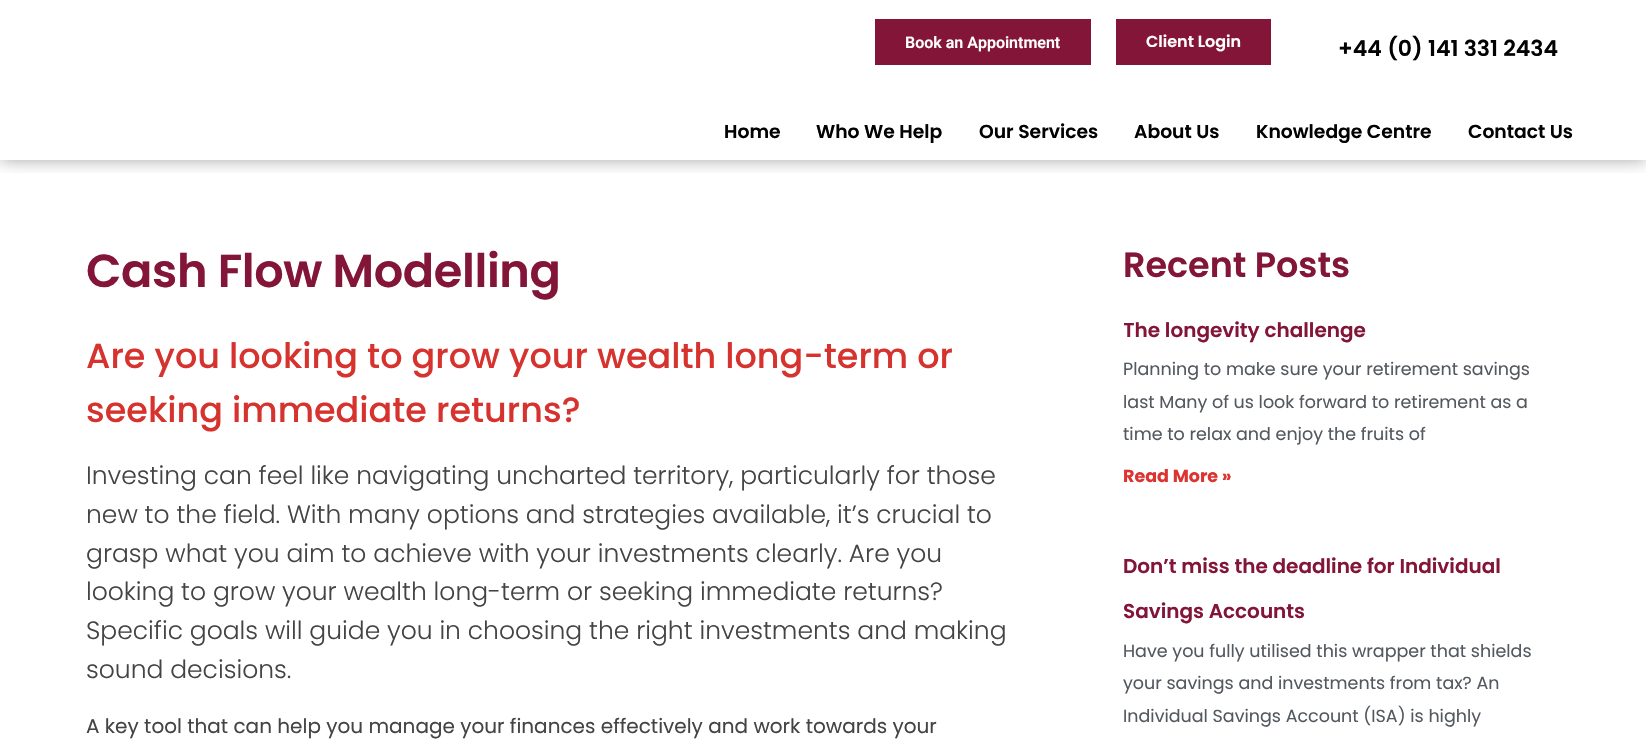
static SkFont makeFont(const char* family, int weight, float size, bool italic = false) {
  SkFontStyle style(weight, SkFontStyle::kNormal_Width,
    italic ? SkFontStyle::kItalic_Slant : SkFontStyle::kUpright_Slant);
  SkFont result(fontMgr->matchFamilyStyle(family, style), size);
  result.setSubpixel(true);
  return result;
}

static void text(SkCanvas* c, const char* s, float x, float y, const SkFont& font, SkColor color) {
  SkPaint ink(SkColor4f::FromColor(color));
  ink.setAntiAlias(true);
  c->drawString(s, x, y, font, ink);
}

static void spacedText(SkCanvas* c, const char* s, float x, float y, const SkFont& font, const SkPaint& ink, float letter, float word) {
  std::vector<SkGlyphID> glyphs(font.countText(s, strlen(s), SkTextEncoding::kUTF8));
  std::vector<float> xs(glyphs.size());
  font.textToGlyphs(s, strlen(s), SkTextEncoding::kUTF8, glyphs);
  font.getXPos(glyphs, xs, x);
  float extra = 0;
  for (size_t i = 0; i < glyphs.size(); i++) {
    xs[i] += extra;
    extra += letter + word * (glyphs[i] == font.unicharToGlyph(' '));
  }
  c->drawTextBlob(SkTextBlob::MakeFromPosHGlyphs(glyphs, xs, y, font), 0, 0, ink);
}

static void box(SkCanvas* c, float l, float t, float r, float b, SkColor color) {
  SkPaint ink(SkColor4f::FromColor(color));
  ink.setAntiAlias(true);
  c->drawRect(SkRect::MakeLTRB(l, t, r, b), ink);
}

void draw(SkCanvas* c) {
  SkPaint paint;
  paint.setAntiAlias(true);
  c->clear(0xffffffff);
  c->save();
  c->clipRect(SkRect::MakeLTRB(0, 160, 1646, 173));
  paint.setColor(0x59000000);
  paint.setMaskFilter(SkMaskFilter::MakeBlur(kNormal_SkBlurStyle, 8));
  c->drawRect(SkRect::MakeLTRB(0, 0, 1646, 160), paint);
  paint.setMaskFilter(nullptr);
  c->restore();
  box(c, 875, 19, 1091, 65, 0xff831538);
  SkFont face1 = makeFont("Roboto", 600, 16);
  text(c, "Book an Appointment", 905, 48, face1, 0xffffffff);
  box(c, 1116, 19, 1271, 65, 0xff831538);
  SkFont face2 = makeFont("Poppins", 600, 16);
  text(c, "Client Login", 1146, 47, face2, 0xffffffff);
  SkFont face3 = makeFont("Poppins", 600, 22);
  text(c, "+44 (0) 141 331 2434", 1338, 56, face3, 0xff020203);
  SkFont face4 = makeFont("Poppins", 600, 18.75f);
  text(c, "Home", 724, 138, face4, 0xff020203);
  text(c, "Who We Help", 816, 138, face4, 0xff020203);
  text(c, "Our Services", 979, 138, face4, 0xff020203);
  text(c, "About Us", 1134, 138, face4, 0xff020203);
  text(c, "Knowledge Centre", 1256, 138, face4, 0xff020203);
  text(c, "Contact Us", 1468, 138, face4, 0xff020203);
  SkFont face5 = makeFont("Poppins", 600, 46.25f);
  paint.setColor(0xff831538);
  spacedText(c, "Cash Flow Modelling", 86, 287, face5, paint, -0.4f, 0);
  SkFont face6 = makeFont("Poppins", 500, 35);
  text(c, "Are you looking to grow your wealth long-term or", 86, 368, face6, 0xffd6332f);
  text(c, "seeking immediate returns?", 86, 422, face6, 0xffd6332f);
  SkFont face7 = makeFont("Poppins", 300, 25);
  text(c, "Investing can feel like navigating uncharted territory, particularly for those", 86, 484, face7, 0xff444444);
  text(c, "new to the field. With many options and strategies available, it’s crucial to", 86, 523, face7, 0xff444444);
  text(c, "grasp what you aim to achieve with your investments clearly. Are you", 86, 562, face7, 0xff444444);
  text(c, "looking to grow your wealth long-term or seeking immediate returns?", 86, 600, face7, 0xff444444);
  text(c, "Specific goals will guide you in choosing the right investments and making", 86, 639, face7, 0xff444444);
  text(c, "sound decisions.", 86, 678, face7, 0xff444444);
  SkFont face8 = makeFont("Poppins", 400, 20);
  text(c, "A key tool that can help you manage your finances effectively and work towards your", 86, 733, face8, 0xff444444);
  SkFont face9 = makeFont("Poppins", 600, 35);
  text(c, "Recent Posts", 1123, 277, face9, 0xff831538);
  c->save();
  c->clipRect(SkRect::MakeLTRB(1124, 308, 1560, 500));
  SkFont face10 = makeFont("Poppins", 600, 20);
  text(c, "The longevity challenge", 1123, 337, face10, 0xff831538);
  c->restore();
  SkFont face11 = makeFont("Poppins", 400, 17.5f);
  text(c, "Planning to make sure your retirement savings", 1123, 375, face11, 0xff54595f);
  text(c, "last Many of us look forward to retirement as a", 1123, 408, face11, 0xff54595f);
  text(c, "time to relax and enjoy the fruits of", 1123, 440, face11, 0xff54595f);
  SkFont face12 = makeFont("Poppins", 700, 17.5f);
  text(c, "Read More »", 1123, 482, face12, 0xffdc3430);
  text(c, "Don’t miss the deadline for Individual", 1123, 573, face10, 0xff831538);
  text(c, "Savings Accounts", 1123, 618, face10, 0xff831538);
  text(c, "Have you fully utilised this wrapper that shields", 1123, 657, face11, 0xff54595f);
  text(c, "your savings and investments from tax? An", 1123, 689, face11, 0xff54595f);
  text(c, "Individual Savings Account (ISA) is highly", 1123, 722, face11, 0xff54595f);
}
